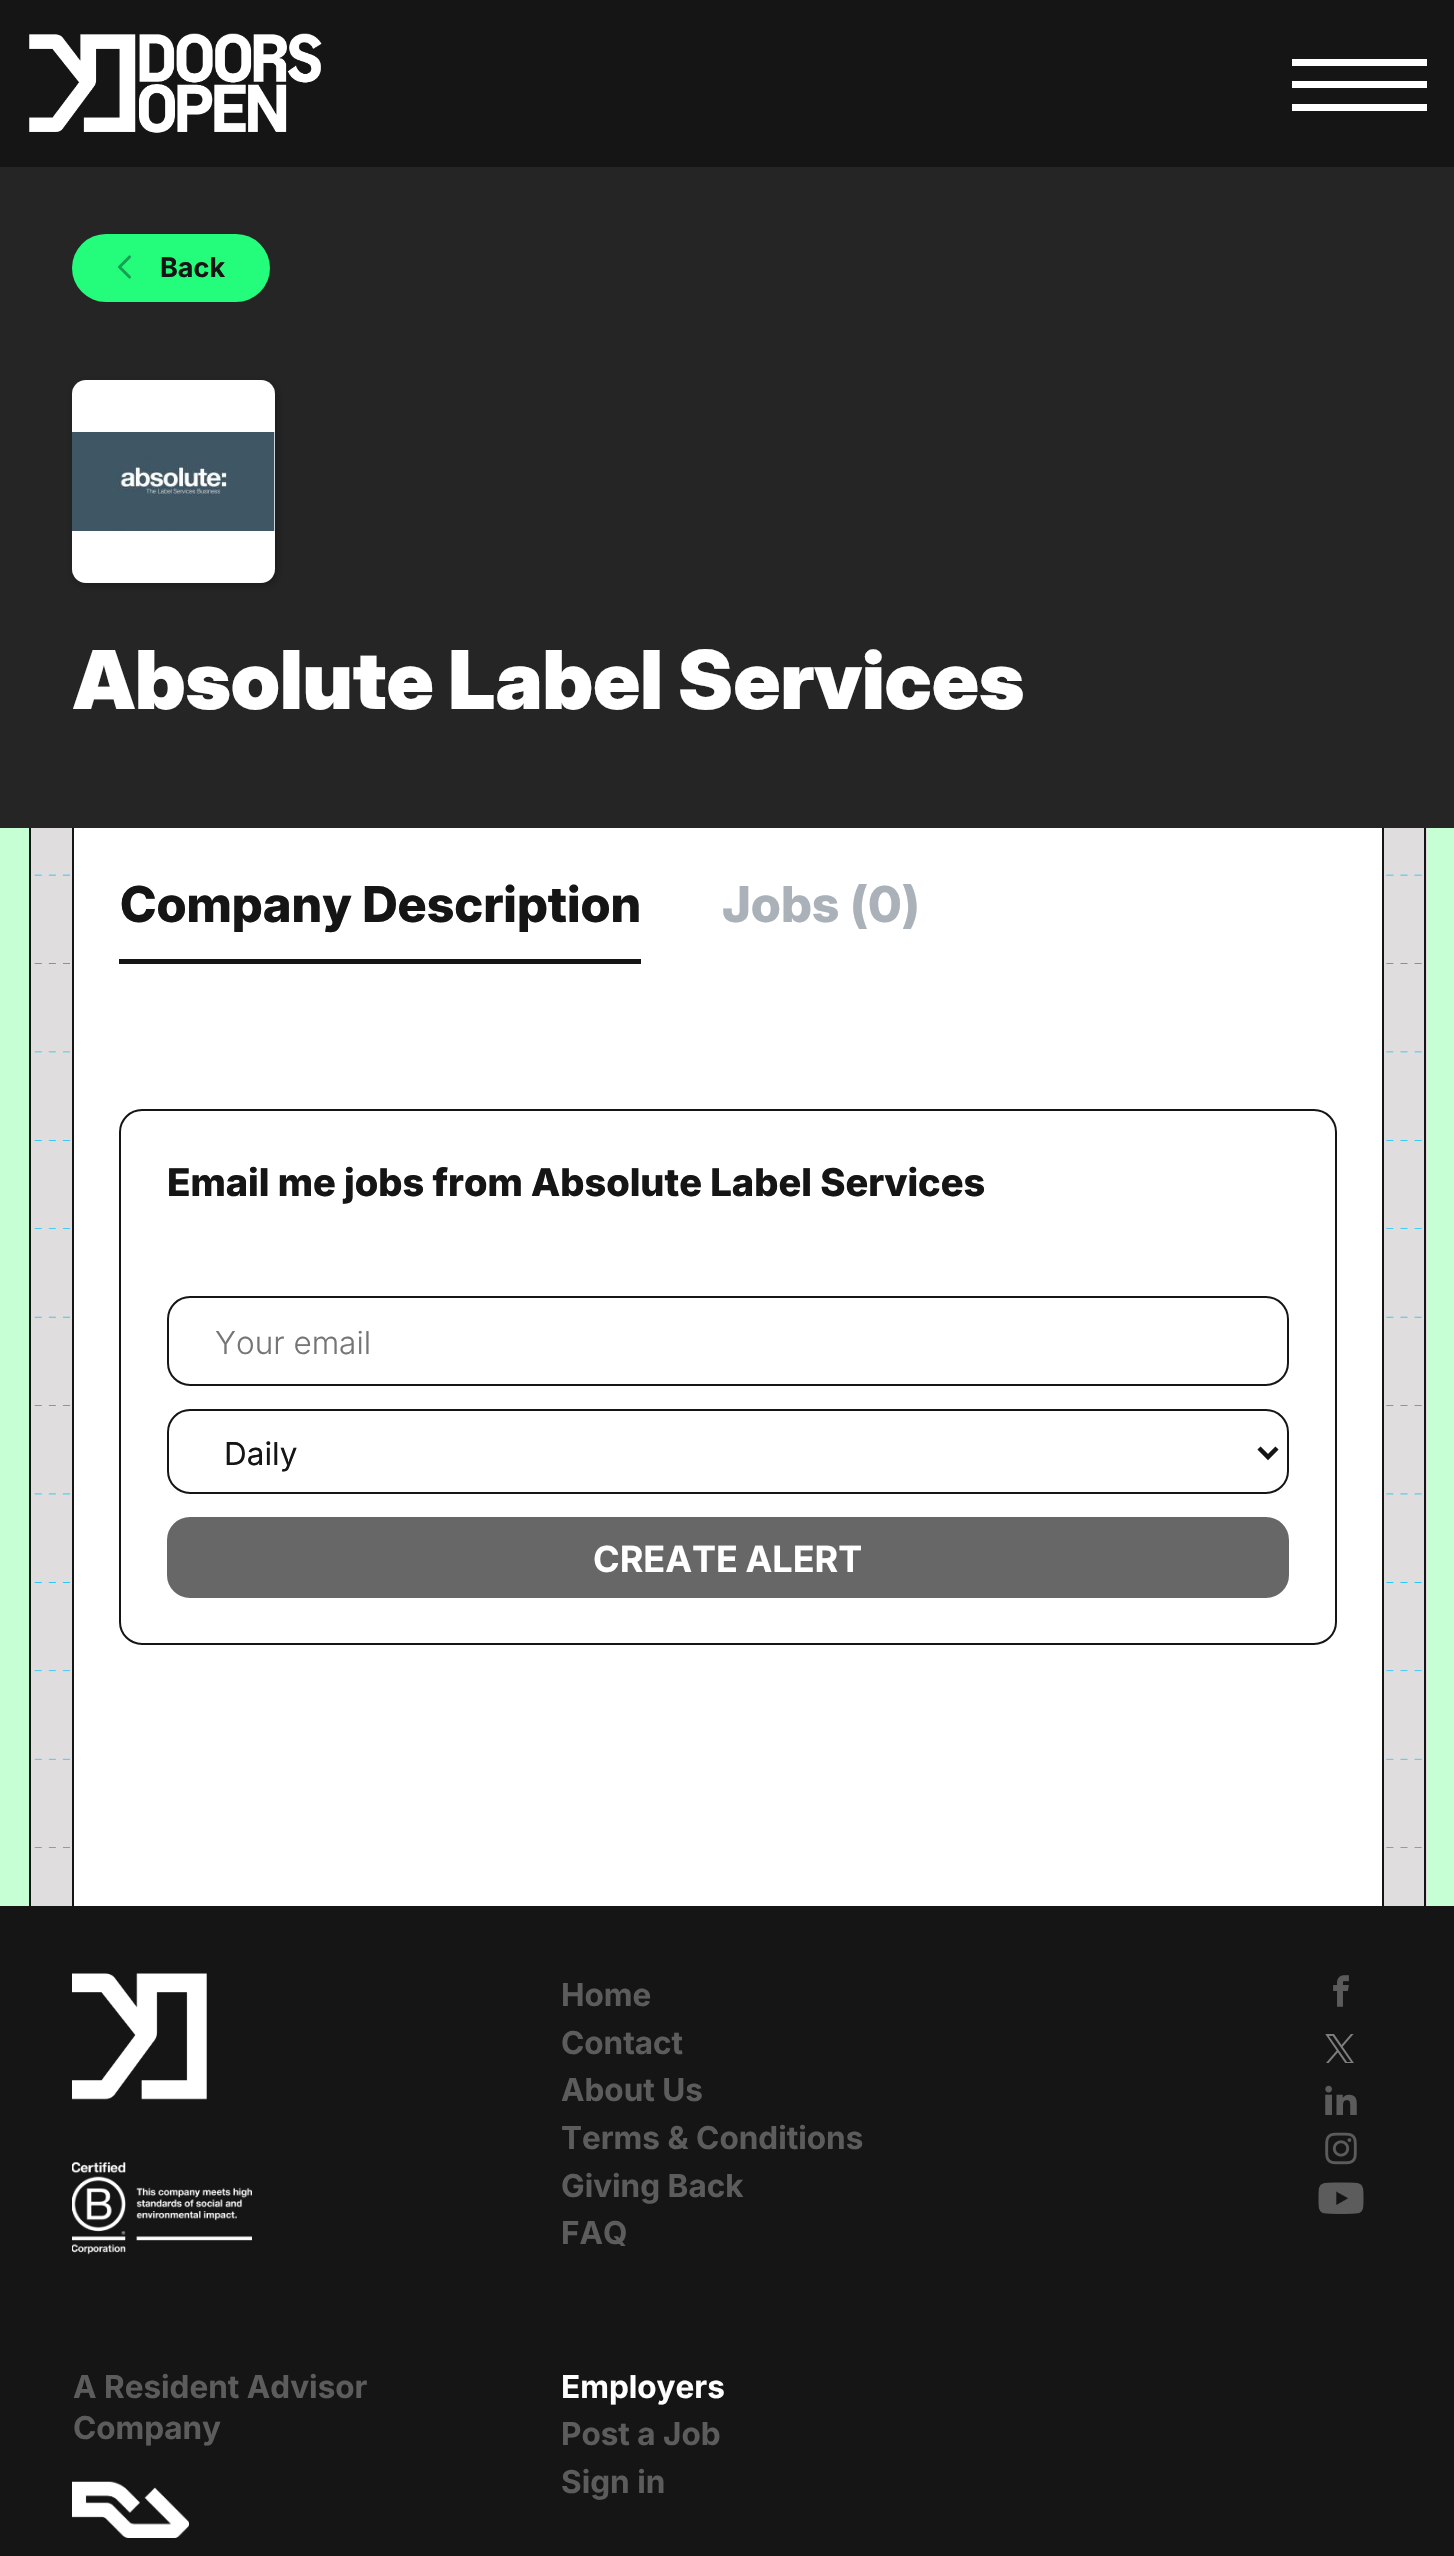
static SkFont makeFont(const char* family, int weight, float size, bool italic = false) {
  SkFontStyle style(weight, SkFontStyle::kNormal_Width,
    italic ? SkFontStyle::kItalic_Slant : SkFontStyle::kUpright_Slant);
  SkFont result(fontMgr->matchFamilyStyle(family, style), size);
  result.setSubpixel(true);
  return result;
}

static void text(SkCanvas* c, const char* s, float x, float y, const SkFont& font, SkColor color) {
  SkPaint ink(SkColor4f::FromColor(color));
  ink.setAntiAlias(true);
  c->drawString(s, x, y, font, ink);
}

static void spacedText(SkCanvas* c, const char* s, float x, float y, const SkFont& font, const SkPaint& ink, float letter, float word) {
  std::vector<SkGlyphID> glyphs(font.countText(s, strlen(s), SkTextEncoding::kUTF8));
  std::vector<float> xs(glyphs.size());
  font.textToGlyphs(s, strlen(s), SkTextEncoding::kUTF8, glyphs);
  font.getXPos(glyphs, xs, x);
  float extra = 0;
  for (size_t i = 0; i < glyphs.size(); i++) {
    xs[i] += extra;
    extra += letter + word * (glyphs[i] == font.unicharToGlyph(' '));
  }
  c->drawTextBlob(SkTextBlob::MakeFromPosHGlyphs(glyphs, xs, y, font), 0, 0, ink);
}

static void box(SkCanvas* c, float l, float t, float r, float b, SkColor color) {
  SkPaint ink(SkColor4f::FromColor(color));
  ink.setAntiAlias(true);
  c->drawRect(SkRect::MakeLTRB(l, t, r, b), ink);
}

static void roundBox(SkCanvas* c, float l, float t, float r, float b, float radius, SkColor color) {
  SkPaint ink(SkColor4f::FromColor(color));
  ink.setAntiAlias(true);
  c->drawRoundRect(SkRect::MakeLTRB(l, t, r, b), radius, radius, ink);
}

static void picture(SkCanvas* c, const char* path, float l, float t, float r, float b) {
  auto image = SkImages::DeferredFromEncodedData(SkData::MakeFromFileName(path));
  c->drawImageRect(image, SkRect::MakeLTRB(l, t, r, b), SkSamplingOptions());
}

void draw(SkCanvas* c) {
  SkPaint paint;
  paint.setAntiAlias(true);
  c->clear(0xffc7ffd4);
  box(c, 0, 0, 1454, 167, 0xff151515);
  picture(c, "img_01.png", 29, 33, 322, 133);
  box(c, 1292, 81, 1427, 88, 0xffffffff);
  box(c, 1292, 59, 1427, 66, 0xffffffff);
  box(c, 1292, 104, 1427, 111, 0xffffffff);
  box(c, 0, 167, 1454, 828, 0xff252525);
  roundBox(c, 72, 234, 270, 302, 34, 0xff24fc7c);
  paint.setStyle(SkPaint::kStroke_Style);
  paint.setStrokeWidth(3.1f);
  paint.setStrokeCap(SkPaint::kRound_Cap);
  paint.setStrokeJoin(SkPaint::kRound_Join);
  paint.setColor(0xff17a150);
  c->drawPath(SkPathBuilder().moveTo(129.5f, 257).lineTo(119.5f, 267).lineTo(129.5f, 277).detach(), paint);
  SkFont face1 = makeFont("Inter", 700, 27);
  text(c, "Back", 160, 277, face1, 0xff151515);
  paint.setStyle(SkPaint::kFill_Style);
  paint.setColor(0x4d000000);
  paint.setMaskFilter(SkMaskFilter::MakeBlur(kNormal_SkBlurStyle, 4.5f));
  c->drawRoundRect(SkRect::MakeLTRB(74, 383, 277, 585), 14, 14, paint);
  paint.setMaskFilter(nullptr);
  roundBox(c, 72, 380, 275, 583, 14, 0xffffffff);
  picture(c, "img_02.png", 72, 432, 275, 531);
  SkFont face2 = makeFont("Inter", 900, 81);
  text(c, "Absolute Label Services", 73, 709, face2, 0xffffffff);
  box(c, 31, 828, 1427, 1906, 0xffdfdddd);
  picture(c, "img_03.png", 34, 874, 1422, 1848);
  box(c, 74, 828, 1382, 1906, 0xffffffff);
  box(c, 1382, 828, 1384, 1906, 0xff151515);
  box(c, 72, 828, 74, 1906, 0xff151515);
  box(c, 119, 959, 641, 964, 0xff151515);
  SkFont face3 = makeFont("Inter", 800, 49.5f);
  text(c, "Company Description", 120, 922, face3, 0xff151515);
  text(c, "Jobs (0)", 722, 922, face3, 0xffabb1b9);
  paint.setStyle(SkPaint::kStroke_Style);
  paint.setStrokeWidth(2);
  paint.setStrokeCap(SkPaint::kButt_Cap);
  paint.setStrokeJoin(SkPaint::kMiter_Join);
  paint.setColor(0xff151515);
  c->drawRoundRect(SkRect::MakeLTRB(120, 1110, 1336, 1644), 22, 22, paint);
  SkFont face4 = makeFont("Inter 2", 800, 38.25f);
  text(c, "Email me jobs from Absolute Label Services", 167, 1196, face4, 0xff151515);
  c->drawRoundRect(SkRect::MakeLTRB(168, 1297, 1288, 1385), 22, 22, paint);
  SkFont face5 = makeFont("Inter", 300, 31.5f);
  text(c, "Your email", 215, 1354, face5, 0xff757575);
  c->drawRoundRect(SkRect::MakeLTRB(168, 1410, 1288, 1493), 22, 22, paint);
  paint.setStrokeWidth(4.5f);
  c->drawPath(SkPathBuilder().moveTo(1259, 1448).lineTo(1268, 1457).lineTo(1277, 1448).detach(), paint);
  SkFont face6 = makeFont("Inter", 400, 31.5f);
  text(c, "Daily", 224, 1465, face6, 0xff151515);
  paint.setStyle(SkPaint::kFill_Style);
  paint.setColor(0xff676767);
  c->drawRoundRect(SkRect::MakeLTRB(168, 1518, 1288, 1597), 22, 22, paint);
  paint.setStyle(SkPaint::kStroke_Style);
  paint.setStrokeWidth(2);
  c->drawRoundRect(SkRect::MakeLTRB(168, 1518, 1288, 1597), 22, 22, paint);
  SkFont face7 = makeFont("Inter", 700, 36);
  paint.setStyle(SkPaint::kFill_Style);
  paint.setColor(0xffffffff);
  spacedText(c, "CREATE ALERT", 593, 1572, face7, paint, 0, -1);
  box(c, 1424, 828, 1426, 1906, 0xff151515);
  box(c, 29, 828, 31, 1906, 0xff151515);
  box(c, 0, 1906, 1454, 2556, 0xff151515);
  picture(c, "img_04.png", 72, 1973, 207, 2100);
  picture(c, "img_05.png", 72, 2162, 252, 2255);
  SkFont face8 = makeFont("Inter", 700, 31.5f);
  text(c, "Home", 561, 2006, face8, 0xff5c5c5c);
  text(c, "Contact", 561, 2054, face8, 0xff5c5c5c);
  text(c, "About Us", 561, 2101, face8, 0xff5c5c5c);
  text(c, "Terms & Conditions", 561, 2149, face8, 0xff5c5c5c);
  text(c, "Giving Back", 561, 2197, face8, 0xff5c5c5c);
  text(c, "FAQ", 561, 2244, face8, 0xff5c5c5c);
  picture(c, "img_06.png", 1333, 1975, 1349, 2007);
  picture(c, "img_07.png", 1325, 2034, 1354, 2063);
  picture(c, "img_08.png", 1325, 2085, 1357, 2115);
  picture(c, "img_09.png", 1325, 2132, 1357, 2165);
  picture(c, "img_10.png", 1318, 2182, 1364, 2214);
  text(c, "A Resident Advisor", 73, 2398, face8, 0xff5c5c5c);
  text(c, "Company", 73, 2439, face8, 0xff5c5c5c);
  picture(c, "img_11.png", 72, 2481, 189, 2538);
  text(c, "Employers", 561, 2398, face8, 0xffffffff);
  text(c, "Post a Job", 561, 2445, face8, 0xff5c5c5c);
  text(c, "Sign in", 561, 2493, face8, 0xff5c5c5c);
}
